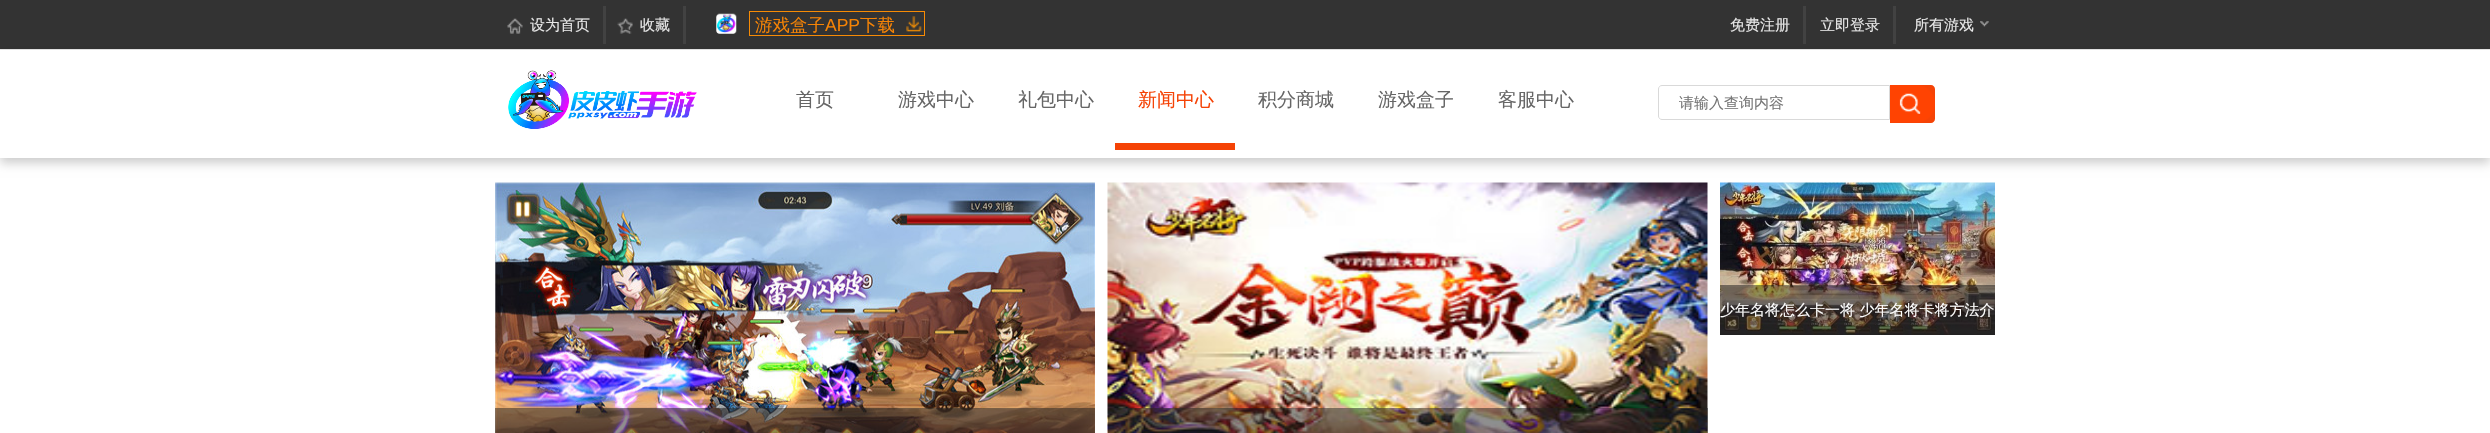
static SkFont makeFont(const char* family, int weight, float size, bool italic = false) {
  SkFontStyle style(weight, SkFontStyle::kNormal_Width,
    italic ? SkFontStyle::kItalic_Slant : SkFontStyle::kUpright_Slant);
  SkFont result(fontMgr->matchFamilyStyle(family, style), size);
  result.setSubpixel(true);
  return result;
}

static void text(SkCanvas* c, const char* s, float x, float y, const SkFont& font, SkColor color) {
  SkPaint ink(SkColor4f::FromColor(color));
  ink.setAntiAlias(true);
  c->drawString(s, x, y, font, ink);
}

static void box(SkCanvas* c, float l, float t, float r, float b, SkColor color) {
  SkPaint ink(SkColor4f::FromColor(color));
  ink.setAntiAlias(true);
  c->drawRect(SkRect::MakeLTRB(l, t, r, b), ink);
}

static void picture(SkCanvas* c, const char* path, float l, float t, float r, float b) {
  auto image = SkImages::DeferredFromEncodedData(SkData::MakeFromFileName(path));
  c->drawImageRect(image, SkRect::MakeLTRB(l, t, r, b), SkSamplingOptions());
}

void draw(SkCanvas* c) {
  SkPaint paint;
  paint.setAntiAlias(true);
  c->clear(0xffffffff);
  box(c, 0, 0, 2490, 49, 0xff333333);
  box(c, 0, 49, 2490, 50, 0xffe8e8e8);
  picture(c, "img_01.png", 507, 18, 523, 34);
  SkFont face1 = makeFont("WenQuanYi Zen Hei", 500, 15);
  text(c, "设为首页", 530, 30, face1, 0xffe8e8e8);
  box(c, 603, 6, 606, 44, 0xff424242);
  picture(c, "img_02.png", 617, 18, 633, 34);
  text(c, "收藏", 640, 30, face1, 0xffe8e8e8);
  box(c, 683, 6, 686, 44, 0xff424242);
  picture(c, "img_03.png", 716, 13, 737, 34);
  paint.setStyle(SkPaint::kStroke_Style);
  paint.setStrokeWidth(1);
  paint.setColor(0xfff78b05);
  c->drawRect(SkRect::MakeLTRB(749.5f, 11.5f, 924.5f, 35.5f), paint);
  SkFont face2 = makeFont("WenQuanYi Zen Hei", 500, 17.5f);
  text(c, "游戏盒子", 755, 31, face2, 0xfff58305);
  SkFont face3 = makeFont("Liberation Sans", 400, 17.5f);
  text(c, "APP", 825, 31, face3, 0xfff58305);
  text(c, "下载", 860, 31, face2, 0xfff58305);
  picture(c, "img_04.png", 906, 16, 922, 32);
  text(c, "免费注册", 1730, 30, face1, 0xffe8e8e8);
  box(c, 1803, 6, 1806, 44, 0xff424242);
  text(c, "立即登录", 1820, 30, face1, 0xffe8e8e8);
  box(c, 1893, 6, 1896, 44, 0xff424242);
  picture(c, "img_05.png", 1980, 21, 1989, 27);
  text(c, "所有游戏", 1914, 30, face1, 0xffe8e8e8);
  paint.setStyle(SkPaint::kFill_Style);
  paint.setColor(0x33000000);
  paint.setMaskFilter(SkMaskFilter::MakeBlur(kNormal_SkBlurStyle, 5));
  c->drawRect(SkRect::MakeLTRB(0, 55, 2490, 163), paint);
  paint.setMaskFilter(nullptr);
  box(c, 0, 50, 2490, 158, 0xffffffff);
  picture(c, "img_06.png", 508, 70, 697, 129);
  SkFont face4 = makeFont("WenQuanYi Zen Hei", 500, 19);
  text(c, "首页", 796, 106, face4, 0xff666666);
  text(c, "游戏中心", 898, 106, face4, 0xff666666);
  text(c, "礼包中心", 1018, 106, face4, 0xff666666);
  box(c, 1115, 143, 1235, 150, 0xfff54306);
  text(c, "新闻中心", 1138, 106, face4, 0xfff54306);
  text(c, "积分商城", 1258, 106, face4, 0xff666666);
  text(c, "游戏盒子", 1378, 106, face4, 0xff666666);
  text(c, "客服中心", 1498, 106, face4, 0xff666666);
  paint.setStyle(SkPaint::kStroke_Style);
  paint.setColor(0xffd9d9d9);
  c->drawPath(SkPathBuilder().moveTo(1662, 85.5f).lineTo(1889.5f, 85.5f).lineTo(1889.5f, 119.5f).lineTo(1662, 119.5f).cubicTo(1660, 119.5f, 1658.5f, 118, 1658.5f, 116).lineTo(1658.5f, 89).cubicTo(1658.5f, 87, 1660, 85.5f, 1662, 85.5f).close().detach(), paint);
  text(c, "请输入查询内容", 1679, 108, face1, 0xff757575);
  paint.setStyle(SkPaint::kFill_Style);
  paint.setColor(0xfff54306);
  c->drawPath(SkPathBuilder().moveTo(1890, 85).lineTo(1931, 85).cubicTo(1933, 85, 1935, 87, 1935, 89).lineTo(1935, 119).cubicTo(1935, 121, 1933, 123, 1931, 123).lineTo(1890, 123).close().detach(), paint);
  picture(c, "img_07.png", 1890, 85, 1935, 123);
  picture(c, "img_08.png", 495, 182, 1095, 433);
  box(c, 495, 408, 1095, 433, 0x801f1f1f);
  picture(c, "img_09.png", 1107, 182, 1708, 433);
  box(c, 1108, 408, 1708, 433, 0x801f1f1f);
  picture(c, "img_10.png", 1720, 182, 1995, 335);
  box(c, 1720, 285, 1995, 335, 0x801f1f1f);
  text(c, "少年名将怎么卡一将 少年名将卡将方法介", 1720, 315, face1, 0xffffffff);
}
